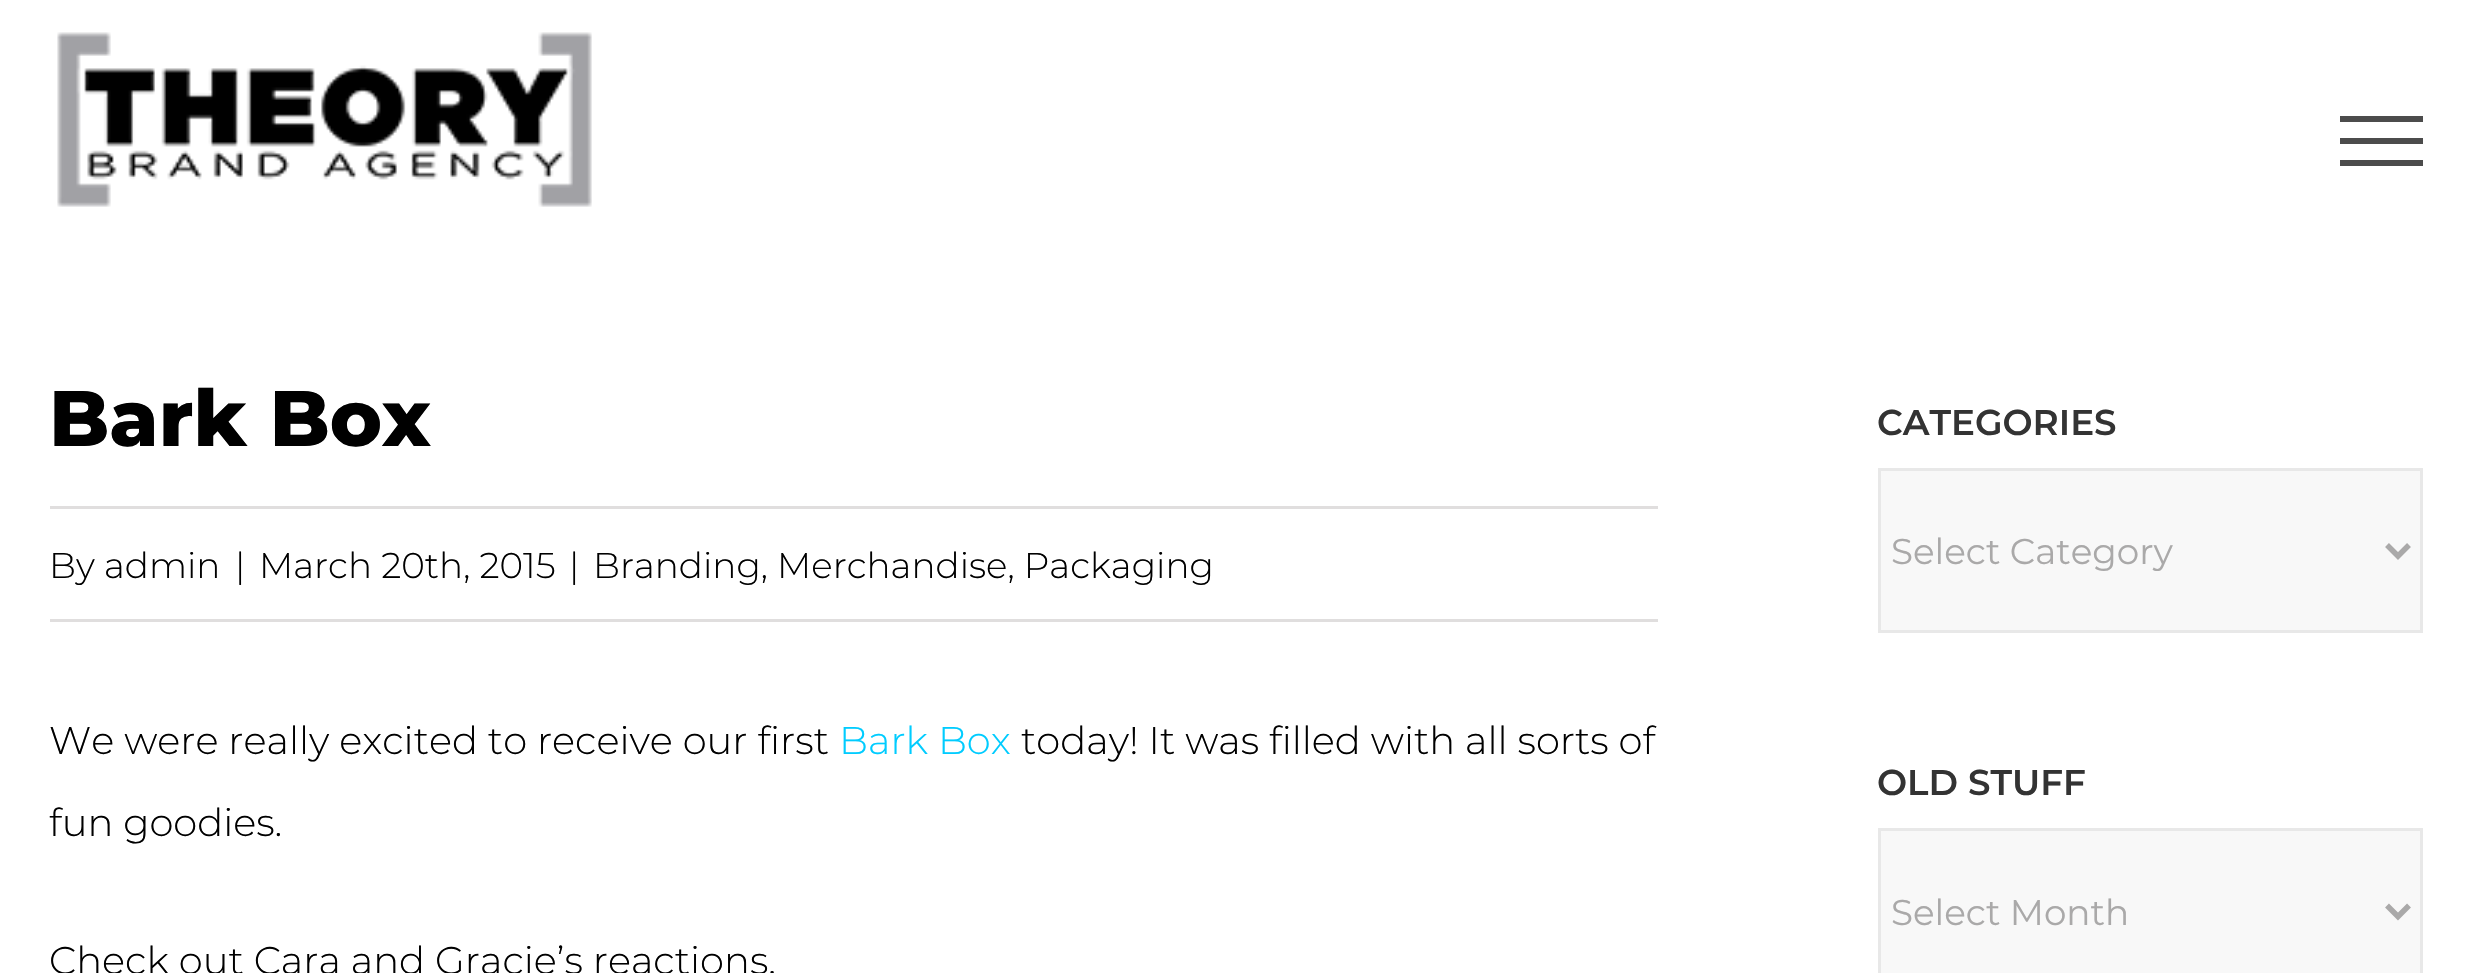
static SkFont makeFont(const char* family, int weight, float size, bool italic = false) {
  SkFontStyle style(weight, SkFontStyle::kNormal_Width,
    italic ? SkFontStyle::kItalic_Slant : SkFontStyle::kUpright_Slant);
  SkFont result(fontMgr->matchFamilyStyle(family, style), size);
  result.setSubpixel(true);
  return result;
}

static void text(SkCanvas* c, const char* s, float x, float y, const SkFont& font, SkColor color) {
  SkPaint ink(SkColor4f::FromColor(color));
  ink.setAntiAlias(true);
  c->drawString(s, x, y, font, ink);
}

static void box(SkCanvas* c, float l, float t, float r, float b, SkColor color) {
  SkPaint ink(SkColor4f::FromColor(color));
  ink.setAntiAlias(true);
  c->drawRect(SkRect::MakeLTRB(l, t, r, b), ink);
}

static void picture(SkCanvas* c, const char* path, float l, float t, float r, float b) {
  auto image = SkImages::DeferredFromEncodedData(SkData::MakeFromFileName(path));
  c->drawImageRect(image, SkRect::MakeLTRB(l, t, r, b), SkSamplingOptions());
}

void draw(SkCanvas* c) {
  SkPaint paint;
  paint.setAntiAlias(true);
  c->clear(0xffffffff);
  picture(c, "img_01.png", 57, 32, 592, 207);
  box(c, 2340, 116, 2423, 122, 0xff4c4c4c);
  box(c, 2340, 138, 2423, 144, 0xff4c4c4c);
  box(c, 2340, 160, 2423, 166, 0xff4c4c4c);
  SkFont face1 = makeFont("Montserrat", 800, 78.5f);
  text(c, "Bark Box", 49, 446, face1, 0xff000000);
  box(c, 50, 506, 1658, 509, 0xffe0dede);
  box(c, 50, 619, 1658, 622, 0xffe0dede);
  SkFont face2 = makeFont("Montserrat", 300, 35.75f);
  text(c, "By admin", 49, 578, face2, 0xff000000);
  text(c, "|", 235, 578, face2, 0xff000000);
  text(c, "March 20th, 2015", 259, 578, face2, 0xff000000);
  text(c, "|", 569, 578, face2, 0xff000000);
  text(c, "Branding, Merchandise, Packaging", 593, 578, face2, 0xff000000);
  SkFont face3 = makeFont("Montserrat", 300, 38.5f);
  text(c, "We were really excited to receive our first", 49, 754, face3, 0xff000000);
  text(c, "Bark Box", 839, 754, face3, 0xff00ccff);
  text(c, "today! It was filled with all sorts of", 1021, 754, face3, 0xff000000);
  text(c, "fun goodies.", 49, 836, face3, 0xff000000);
  text(c, "Check out Cara and Gracie’s reactions.", 49, 974, face3, 0xff000000);
  SkFont face4 = makeFont("Montserrat", 600, 35.75f);
  text(c, "CATEGORIES", 1877, 435, face4, 0xff333333);
  paint.setColor(0xfff8f8f8);
  c->drawRect(SkRect::MakeLTRB(1879.5f, 469.5f, 2421.5f, 631.5f), paint);
  paint.setStyle(SkPaint::kStroke_Style);
  paint.setStrokeWidth(3);
  paint.setColor(0xffe8e8e8);
  c->drawRect(SkRect::MakeLTRB(1879.5f, 469.5f, 2421.5f, 631.5f), paint);
  paint.setStrokeWidth(5.5f);
  paint.setColor(0xffaaa9a9);
  c->drawPath(SkPathBuilder().moveTo(2387, 545).lineTo(2398, 556).lineTo(2409, 545).detach(), paint);
  SkFont face5 = makeFont("Montserrat", 400, 35.75f);
  text(c, "Select Category", 1891, 564, face5, 0xffaaa9a9);
  text(c, "OLD STUFF", 1877, 795, face4, 0xff333333);
  paint.setStyle(SkPaint::kFill_Style);
  paint.setColor(0xfff8f8f8);
  c->drawRect(SkRect::MakeLTRB(1879.5f, 829.5f, 2421.5f, 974.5f), paint);
  paint.setStyle(SkPaint::kStroke_Style);
  paint.setStrokeWidth(3);
  paint.setColor(0xffe8e8e8);
  c->drawRect(SkRect::MakeLTRB(1879.5f, 829.5f, 2421.5f, 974.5f), paint);
  paint.setStrokeWidth(5.5f);
  paint.setColor(0xffaaa9a9);
  c->drawPath(SkPathBuilder().moveTo(2387, 905.5f).lineTo(2398, 916.5f).lineTo(2409, 905.5f).detach(), paint);
  text(c, "Select Month", 1891, 925, face5, 0xffaaa9a9);
}
